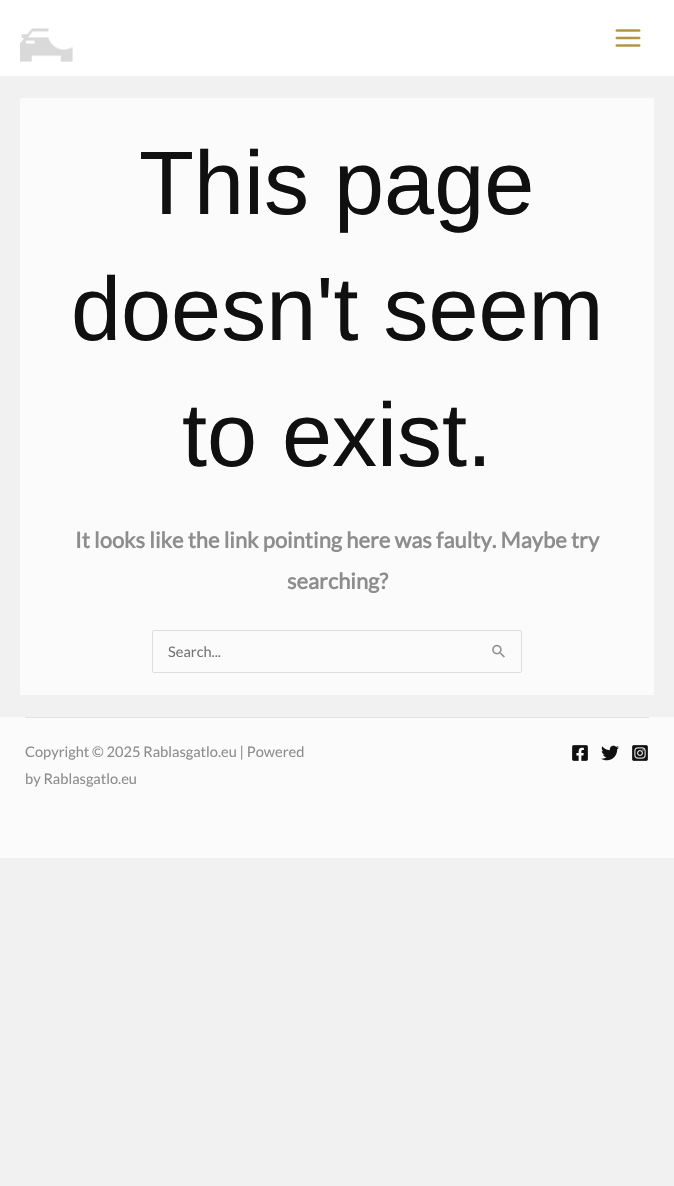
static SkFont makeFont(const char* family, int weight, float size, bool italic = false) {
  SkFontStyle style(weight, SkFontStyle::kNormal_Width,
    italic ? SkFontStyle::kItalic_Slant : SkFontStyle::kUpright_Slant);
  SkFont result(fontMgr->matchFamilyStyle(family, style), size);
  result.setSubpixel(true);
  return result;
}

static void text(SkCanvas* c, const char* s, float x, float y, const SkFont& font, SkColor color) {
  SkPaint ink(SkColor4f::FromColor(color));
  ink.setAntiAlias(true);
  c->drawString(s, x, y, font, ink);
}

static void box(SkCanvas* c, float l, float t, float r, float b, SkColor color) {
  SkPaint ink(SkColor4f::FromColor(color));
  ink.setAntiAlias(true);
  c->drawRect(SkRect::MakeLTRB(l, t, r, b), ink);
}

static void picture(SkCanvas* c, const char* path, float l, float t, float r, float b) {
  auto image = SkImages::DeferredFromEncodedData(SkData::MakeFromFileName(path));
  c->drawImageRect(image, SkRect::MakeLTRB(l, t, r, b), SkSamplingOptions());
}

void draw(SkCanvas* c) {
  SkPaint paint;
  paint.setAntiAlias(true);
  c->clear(0xfff1f1f1);
  box(c, 0, 0, 674, 76, 0xffffffff);
  picture(c, "img_01.png", 20, 28, 73, 62);
  picture(c, "img_02.png", 615, 29, 641, 47);
  box(c, 20, 98, 654, 695, 0xfffbfbfb);
  SkFont face1 = makeFont("Liberation Sans", 400, 90);
  text(c, "This page", 139, 214, face1, 0xff101010);
  text(c, "doesn't seem", 71, 340, face1, 0xff101010);
  text(c, "to exist.", 182, 466, face1, 0xff101010);
  SkFont face2 = makeFont("Lato", 700, 21.9f);
  text(c, "It looks like the link pointing here was faulty. Maybe try", 75, 548, face2, 0xff8d8d8d);
  text(c, "searching?", 287, 589, face2, 0xff8d8d8d);
  paint.setStyle(SkPaint::kStroke_Style);
  paint.setStrokeWidth(1);
  paint.setColor(0xffdddddd);
  c->drawRoundRect(SkRect::MakeLTRB(152.5f, 630.5f, 521.5f, 672.5f), 1.5f, 1.5f, paint);
  SkFont face3 = makeFont("Lato", 400, 14.6f);
  text(c, "Search...", 168, 657, face3, 0xff757575);
  picture(c, "img_03.png", 492, 644, 505, 658);
  box(c, 0, 717, 674, 858, 0xfffbfbfb);
  box(c, 25, 717, 649, 718, 0xffe2e2e2);
  text(c, "Copyright © 2025 Rablasgatlo.eu | Powered", 25, 757, face3, 0xff8d8d8d);
  text(c, "by Rablasgatlo.eu", 25, 784, face3, 0xff8d8d8d);
  picture(c, "img_04.png", 572, 745, 588, 761);
  picture(c, "img_05.png", 601, 745, 619, 761);
  picture(c, "img_06.png", 632, 745, 648, 761);
}
